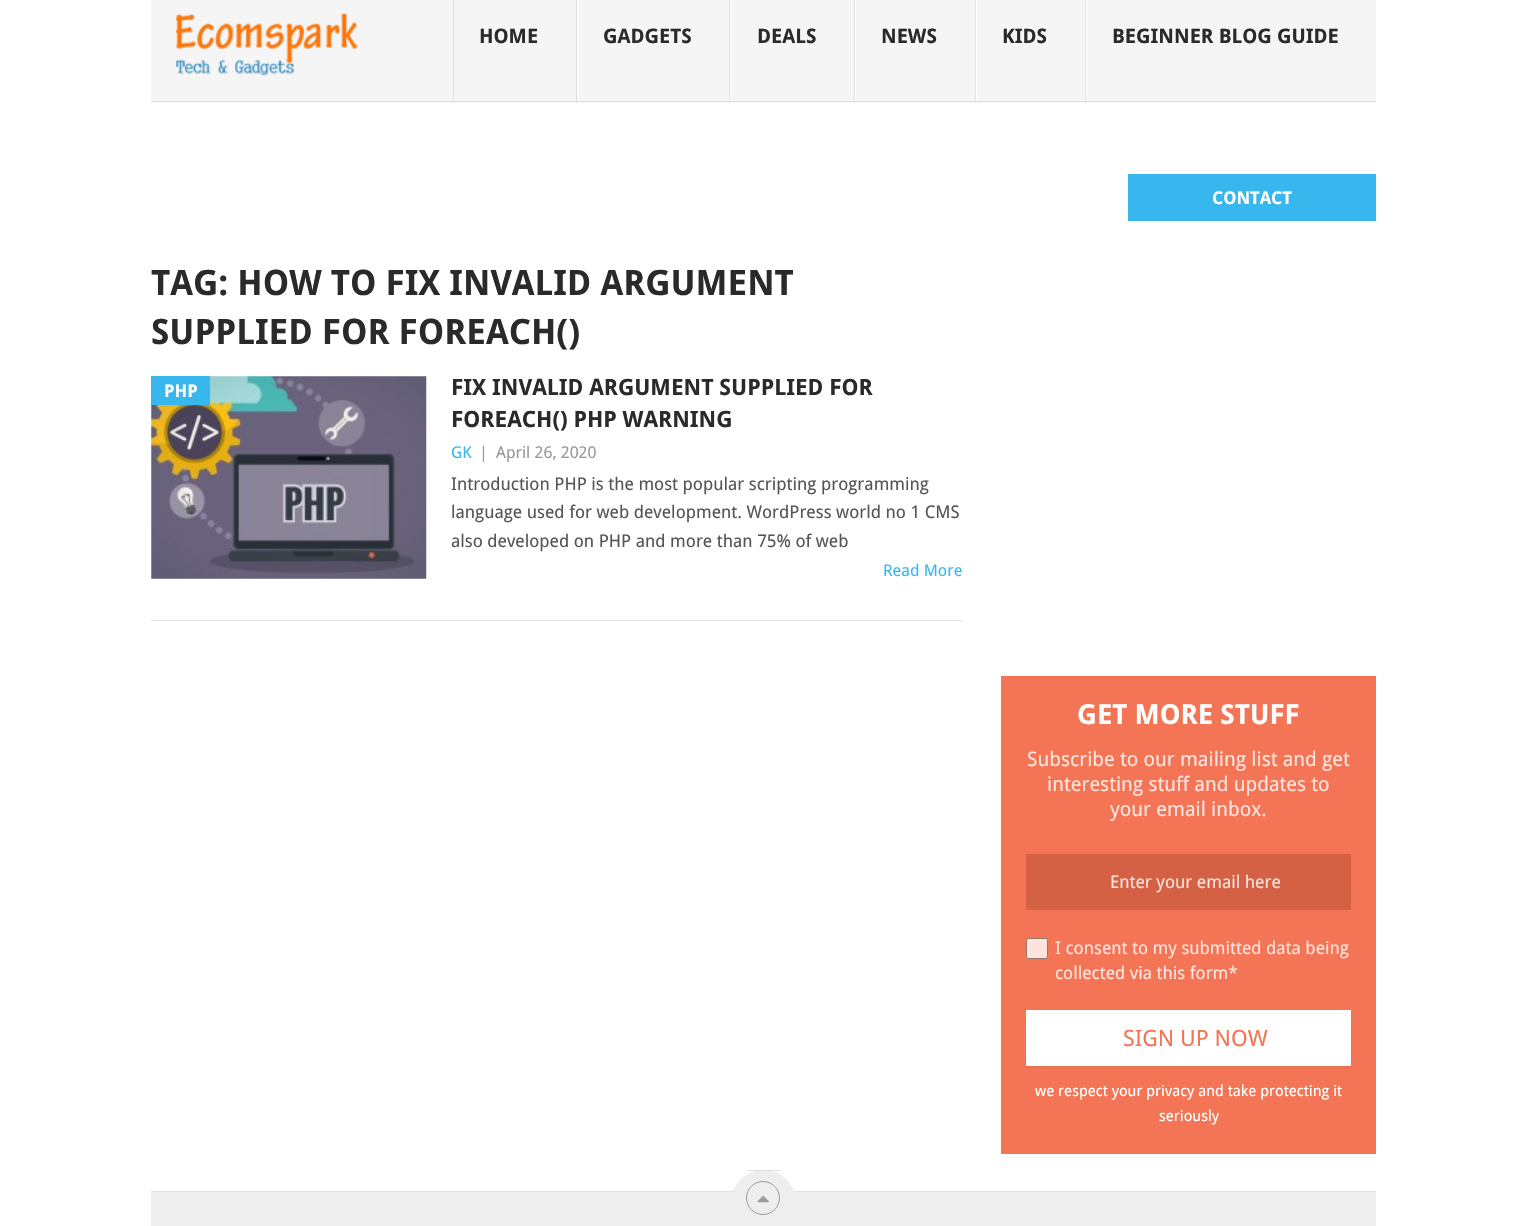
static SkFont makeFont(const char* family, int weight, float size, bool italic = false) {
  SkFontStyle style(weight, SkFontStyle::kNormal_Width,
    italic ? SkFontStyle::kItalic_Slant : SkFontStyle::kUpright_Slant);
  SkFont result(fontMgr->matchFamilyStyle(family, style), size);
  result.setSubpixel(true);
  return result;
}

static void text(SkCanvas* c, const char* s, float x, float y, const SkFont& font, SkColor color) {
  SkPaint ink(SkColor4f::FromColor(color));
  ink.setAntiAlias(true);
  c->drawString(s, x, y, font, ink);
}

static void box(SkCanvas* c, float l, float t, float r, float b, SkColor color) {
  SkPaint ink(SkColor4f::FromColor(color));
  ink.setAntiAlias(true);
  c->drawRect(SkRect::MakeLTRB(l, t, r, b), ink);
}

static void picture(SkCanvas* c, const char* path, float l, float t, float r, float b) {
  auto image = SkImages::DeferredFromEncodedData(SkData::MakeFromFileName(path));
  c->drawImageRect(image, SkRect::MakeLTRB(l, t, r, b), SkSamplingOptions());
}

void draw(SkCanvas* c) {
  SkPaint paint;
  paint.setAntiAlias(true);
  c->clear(0xffffffff);
  box(c, 151, 0, 1376, 103, 0xfff5f5f5);
  picture(c, "img_01.png", 176, 13, 358, 75);
  box(c, 576, 0, 577, 103, 0xffe2e2e2);
  box(c, 453, 0, 454, 103, 0xffe2e2e2);
  SkFont face1 = makeFont("Droid Sans", 700, 20);
  text(c, "HOME", 479, 43, face1, 0xff2a2a2a);
  box(c, 729, 0, 730, 103, 0xffe2e2e2);
  box(c, 578, 0, 579, 103, 0xffffffff);
  text(c, "GADGETS", 603, 43, face1, 0xff2a2a2a);
  box(c, 854, 0, 855, 103, 0xffe2e2e2);
  box(c, 730, 0, 731, 103, 0xffffffff);
  text(c, "DEALS", 757, 43, face1, 0xff2a2a2a);
  box(c, 975, 0, 976, 103, 0xffe2e2e2);
  box(c, 855, 0, 856, 103, 0xffffffff);
  text(c, "NEWS", 881, 43, face1, 0xff2a2a2a);
  box(c, 1085, 0, 1086, 103, 0xffe2e2e2);
  box(c, 976, 0, 977, 103, 0xffffffff);
  text(c, "KIDS", 1002, 43, face1, 0xff2a2a2a);
  box(c, 1086, 0, 1087, 103, 0xffffffff);
  text(c, "BEGINNER BLOG GUIDE", 1112, 43, face1, 0xff2a2a2a);
  box(c, 151, 101, 1376, 102, 0xffe2e2e2);
  box(c, 1128, 174, 1376, 221, 0xff38b7ee);
  SkFont face2 = makeFont("Droid Sans", 700, 17.5f);
  text(c, "CONTACT", 1212, 204, face2, 0xffffffff);
  SkFont face3 = makeFont("Droid Sans", 700, 35);
  text(c, "TAG: HOW TO FIX INVALID ARGUMENT", 151, 295, face3, 0xff2a2a2a);
  text(c, "SUPPLIED FOR FOREACH()", 151, 344, face3, 0xff2a2a2a);
  box(c, 151, 620, 963, 621, 0xffe2e2e2);
  picture(c, "img_02.png", 151, 376, 427, 579);
  box(c, 151, 376, 210, 405, 0xff38b7ee);
  text(c, "PHP", 164, 397, face2, 0xffffffff);
  SkFont face4 = makeFont("Droid Sans", 700, 22.5f);
  text(c, "FIX INVALID ARGUMENT SUPPLIED FOR", 451, 395, face4, 0xff2a2a2a);
  text(c, "FOREACH() PHP WARNING", 451, 427, face4, 0xff2a2a2a);
  SkFont face5 = makeFont("Droid Sans", 400, 16.25f);
  text(c, "GK", 451, 458, face5, 0xff38b7ee);
  text(c, "|", 479, 458, face5, 0xff999999);
  text(c, "April 26, 2020", 496, 458, face5, 0xff999999);
  SkFont face6 = makeFont("Droid Sans", 400, 17.5f);
  text(c, "Introduction PHP is the most popular scripting programming", 451, 490, face6, 0xff555555);
  text(c, "language used for web development. WordPress world no 1 CMS", 451, 518, face6, 0xff555555);
  text(c, "also developed on PHP and more than 75% of web", 451, 547, face6, 0xff555555);
  text(c, "Read More", 883, 576, face5, 0xff38b7ee);
  box(c, 1001, 676, 1376, 1154, 0xfff47555);
  SkFont face7 = makeFont("Droid Sans", 700, 27.5f);
  text(c, "GET MORE STUFF", 1077, 724, face7, 0xffffffff);
  SkFont face8 = makeFont("Droid Sans", 400, 20);
  text(c, "Subscribe to our mailing list and get", 1027, 766, face8, 0xfffde3dd);
  text(c, "interesting stuff and updates to", 1047, 791, face8, 0xfffde3dd);
  text(c, "your email inbox.", 1110, 816, face8, 0xfffde3dd);
  box(c, 1026, 854, 1351, 910, 0xffd56144);
  text(c, "Enter your email here", 1110, 888, face6, 0xfff7dfda);
  paint.setColor(0xfffde3dd);
  c->drawRoundRect(SkRect::MakeLTRB(1026.5f, 938.5f, 1047.5f, 958.5f), 2, 2, paint);
  paint.setStyle(SkPaint::kStroke_Style);
  paint.setStrokeWidth(1);
  paint.setColor(0xff8f766f);
  c->drawRoundRect(SkRect::MakeLTRB(1026.5f, 938.5f, 1047.5f, 958.5f), 2, 2, paint);
  text(c, "I consent to my submitted data being", 1055, 954, face6, 0xfffde3dd);
  text(c, "collected via this form*", 1055, 979, face6, 0xfffde3dd);
  paint.setStyle(SkPaint::kFill_Style);
  paint.setColor(0x0d000000);
  paint.setMaskFilter(SkMaskFilter::MakeBlur(kNormal_SkBlurStyle, 1));
  c->drawRect(SkRect::MakeLTRB(1026, 1011, 1351, 1068), paint);
  paint.setMaskFilter(nullptr);
  box(c, 1026, 1010, 1351, 1066, 0xffffffff);
  SkFont face9 = makeFont("Droid Sans", 400, 22.5f);
  text(c, "SIGN UP NOW", 1123, 1046, face9, 0xfff47555);
  SkFont face10 = makeFont("Droid Sans", 400, 15);
  text(c, "we respect your privacy and take protecting it", 1035, 1096, face10, 0xffffffff);
  text(c, "seriously", 1159, 1121, face10, 0xffffffff);
  box(c, 151, 1192, 1376, 1226, 0xffeeeeee);
  box(c, 151, 1191, 1376, 1192, 0xffe2e2e2);
  paint.setColor(0xffeeeeee);
  c->drawCircle(763.5f, 1202.5f, 32.5f, paint);
  box(c, 748, 1170, 780, 1171, 0xffdddddd);
  paint.setStyle(SkPaint::kStroke_Style);
  paint.setColor(0xff9b9b9b);
  c->drawCircle(763, 1198, 16.5f, paint);
  picture(c, "img_03.png", 757, 1196, 769, 1203);
}
